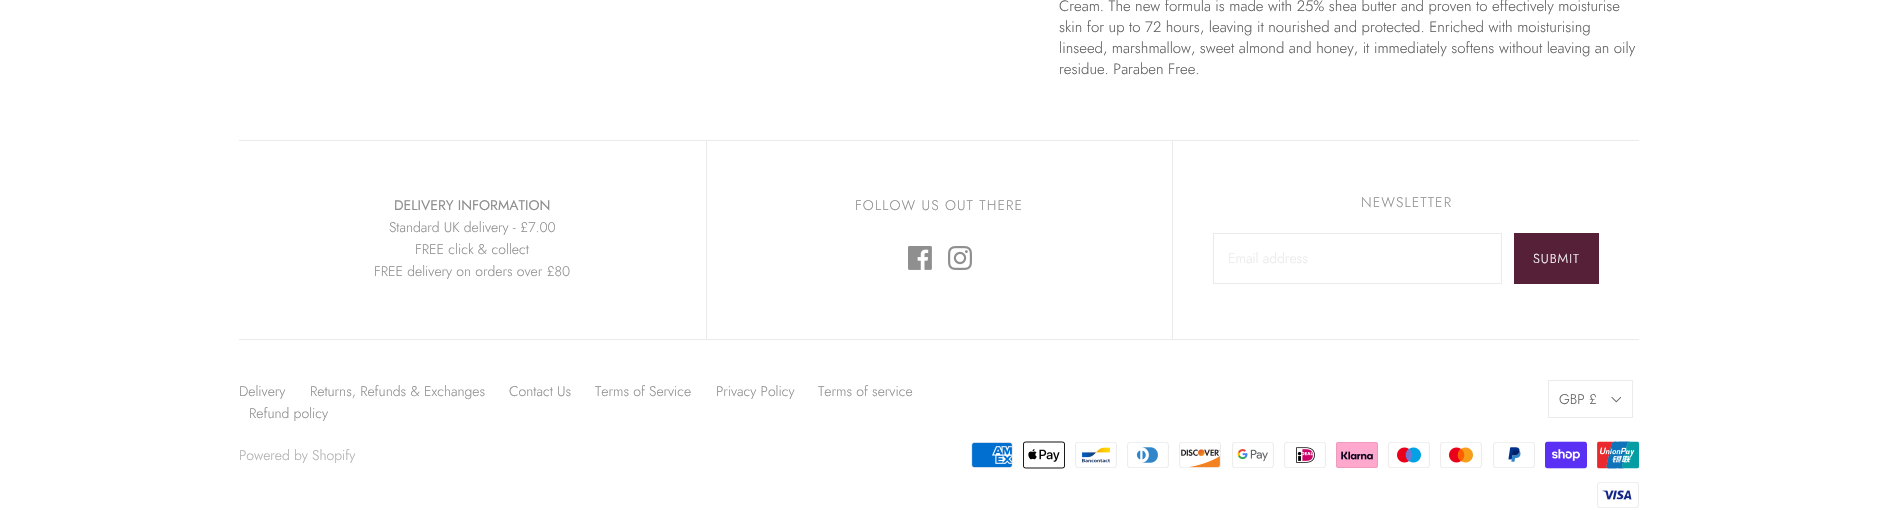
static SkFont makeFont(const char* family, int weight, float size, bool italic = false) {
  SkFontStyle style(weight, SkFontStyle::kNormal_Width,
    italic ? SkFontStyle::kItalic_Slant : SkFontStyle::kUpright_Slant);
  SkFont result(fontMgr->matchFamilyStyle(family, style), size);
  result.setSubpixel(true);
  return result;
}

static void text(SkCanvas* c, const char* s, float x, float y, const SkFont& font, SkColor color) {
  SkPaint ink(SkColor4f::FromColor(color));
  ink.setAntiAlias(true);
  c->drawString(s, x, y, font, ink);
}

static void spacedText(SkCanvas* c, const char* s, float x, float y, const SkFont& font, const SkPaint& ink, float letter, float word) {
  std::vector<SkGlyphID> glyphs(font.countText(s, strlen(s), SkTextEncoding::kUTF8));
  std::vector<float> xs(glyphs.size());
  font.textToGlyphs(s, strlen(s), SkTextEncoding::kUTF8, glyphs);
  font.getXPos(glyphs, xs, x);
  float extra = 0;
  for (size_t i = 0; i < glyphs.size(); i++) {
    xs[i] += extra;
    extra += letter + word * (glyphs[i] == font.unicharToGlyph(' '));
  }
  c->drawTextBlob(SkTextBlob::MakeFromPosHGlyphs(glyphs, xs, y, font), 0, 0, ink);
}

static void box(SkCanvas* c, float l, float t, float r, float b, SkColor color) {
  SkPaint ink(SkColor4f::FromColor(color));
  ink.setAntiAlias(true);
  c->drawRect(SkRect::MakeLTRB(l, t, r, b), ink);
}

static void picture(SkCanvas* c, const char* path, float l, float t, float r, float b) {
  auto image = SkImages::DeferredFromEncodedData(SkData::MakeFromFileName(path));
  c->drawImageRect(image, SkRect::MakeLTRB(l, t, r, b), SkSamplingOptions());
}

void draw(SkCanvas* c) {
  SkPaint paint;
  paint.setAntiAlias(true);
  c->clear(0xffffffff);
  SkFont face1 = makeFont("Jost", 300, 15);
  text(c, "Cream. The new formula is made with 25% shea butter and proven to effectively moisturise", 1059, 11, face1, 0xff606060);
  text(c, "skin for up to 72 hours, leaving it nourished and protected. Enriched with moisturising", 1059, 32, face1, 0xff606060);
  text(c, "linseed, marshmallow, sweet almond and honey, it immediately softens without leaving an oily", 1059, 53, face1, 0xff606060);
  text(c, "residue. Paraben Free.", 1059, 74, face1, 0xff606060);
  box(c, 239, 140, 1639, 141, 0xffebebeb);
  box(c, 239, 339, 1639, 340, 0xffebebeb);
  SkFont face2 = makeFont("Jost", 400, 14);
  text(c, "DELIVERY INFORMATION", 394, 210, face2, 0xff8f8f8f);
  SkFont face3 = makeFont("Jost", 300, 14);
  text(c, "Standard UK delivery - £7.00", 389, 232, face3, 0xff8f8f8f);
  text(c, "FREE click & collect", 415, 254, face3, 0xff8f8f8f);
  text(c, "FREE delivery on orders over £80", 374, 276, face3, 0xff8f8f8f);
  box(c, 706, 141, 707, 339, 0xffebebeb);
  paint.setColor(0xff8f8f8f);
  spacedText(c, "FOLLOW US OUT THERE", 855, 210, face3, paint, 1.1f, 0);
  picture(c, "img_01.png", 908, 246, 932, 270);
  picture(c, "img_02.png", 948, 246, 972, 270);
  box(c, 1172, 141, 1173, 339, 0xffebebeb);
  spacedText(c, "NEWSLETTER", 1361, 207, face3, paint, 1.1f, 0);
  paint.setStyle(SkPaint::kStroke_Style);
  paint.setStrokeWidth(1);
  paint.setColor(0xffebebeb);
  c->drawRect(SkRect::MakeLTRB(1213.5f, 233.5f, 1501.5f, 283.5f), paint);
  text(c, "Email address", 1228, 263, face3, 0xffebebeb);
  box(c, 1514, 233, 1599, 284, 0xff572039);
  SkFont face4 = makeFont("Jost", 300, 13);
  paint.setStyle(SkPaint::kFill_Style);
  paint.setColor(0xffffffff);
  spacedText(c, "SUBMIT", 1533, 263, face4, paint, 1, 0);
  text(c, "Delivery", 239, 396, face3, 0xff8f8f8f);
  text(c, "Returns, Refunds & Exchanges", 310, 396, face3, 0xff8f8f8f);
  text(c, "Contact Us", 509, 396, face3, 0xff8f8f8f);
  text(c, "Terms of Service", 595, 396, face3, 0xff8f8f8f);
  text(c, "Privacy Policy", 716, 396, face3, 0xff8f8f8f);
  text(c, "Terms of service", 818, 396, face3, 0xff8f8f8f);
  text(c, "Refund policy", 249, 418, face3, 0xff8f8f8f);
  text(c, "Powered by Shopify", 239, 460, face3, 0xffafafaf);
  paint.setStyle(SkPaint::kStroke_Style);
  paint.setColor(0xffebebeb);
  c->drawRect(SkRect::MakeLTRB(1548.5f, 380.5f, 1632.5f, 417.5f), paint);
  text(c, "GBP £", 1559, 404, face3, 0xff606060);
  picture(c, "img_03.png", 1611, 397, 1621, 403);
  picture(c, "img_04.png", 971, 442, 1013, 468);
  picture(c, "img_05.png", 1023, 441, 1065, 469);
  picture(c, "img_06.png", 1075, 442, 1117, 468);
  picture(c, "img_07.png", 1127, 442, 1169, 468);
  picture(c, "img_08.png", 1179, 442, 1221, 468);
  picture(c, "img_09.png", 1232, 442, 1274, 468);
  picture(c, "img_10.png", 1284, 442, 1326, 468);
  picture(c, "img_11.png", 1336, 442, 1378, 468);
  picture(c, "img_12.png", 1388, 442, 1430, 468);
  picture(c, "img_13.png", 1440, 442, 1482, 468);
  picture(c, "img_14.png", 1493, 442, 1535, 468);
  picture(c, "img_15.png", 1545, 441, 1587, 469);
  picture(c, "img_16.png", 1597, 441, 1639, 469);
  picture(c, "img_17.png", 1597, 482, 1639, 508);
}
